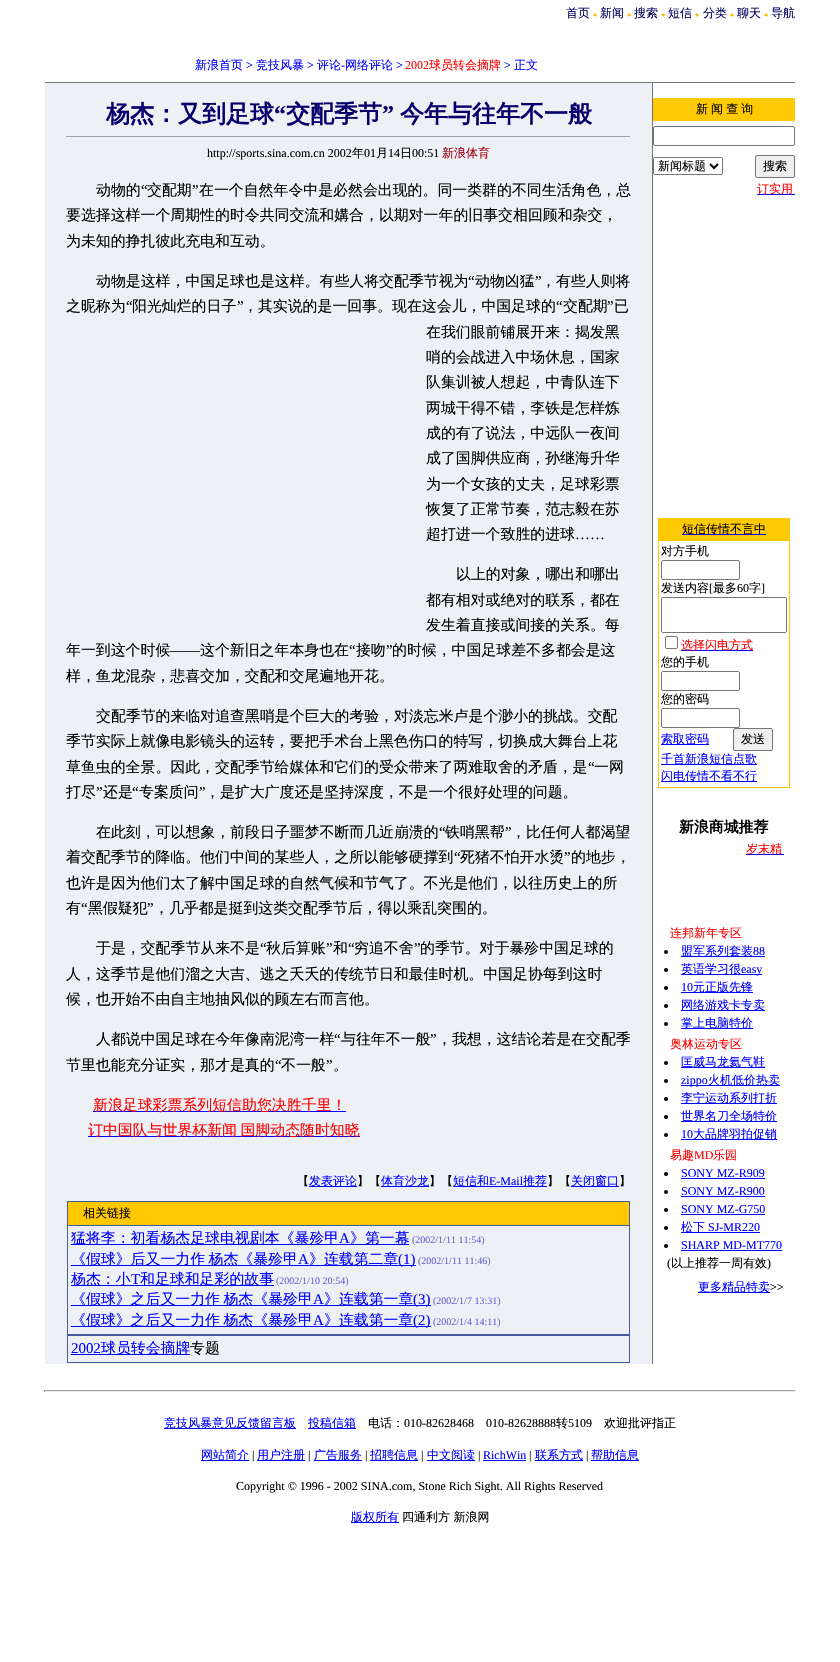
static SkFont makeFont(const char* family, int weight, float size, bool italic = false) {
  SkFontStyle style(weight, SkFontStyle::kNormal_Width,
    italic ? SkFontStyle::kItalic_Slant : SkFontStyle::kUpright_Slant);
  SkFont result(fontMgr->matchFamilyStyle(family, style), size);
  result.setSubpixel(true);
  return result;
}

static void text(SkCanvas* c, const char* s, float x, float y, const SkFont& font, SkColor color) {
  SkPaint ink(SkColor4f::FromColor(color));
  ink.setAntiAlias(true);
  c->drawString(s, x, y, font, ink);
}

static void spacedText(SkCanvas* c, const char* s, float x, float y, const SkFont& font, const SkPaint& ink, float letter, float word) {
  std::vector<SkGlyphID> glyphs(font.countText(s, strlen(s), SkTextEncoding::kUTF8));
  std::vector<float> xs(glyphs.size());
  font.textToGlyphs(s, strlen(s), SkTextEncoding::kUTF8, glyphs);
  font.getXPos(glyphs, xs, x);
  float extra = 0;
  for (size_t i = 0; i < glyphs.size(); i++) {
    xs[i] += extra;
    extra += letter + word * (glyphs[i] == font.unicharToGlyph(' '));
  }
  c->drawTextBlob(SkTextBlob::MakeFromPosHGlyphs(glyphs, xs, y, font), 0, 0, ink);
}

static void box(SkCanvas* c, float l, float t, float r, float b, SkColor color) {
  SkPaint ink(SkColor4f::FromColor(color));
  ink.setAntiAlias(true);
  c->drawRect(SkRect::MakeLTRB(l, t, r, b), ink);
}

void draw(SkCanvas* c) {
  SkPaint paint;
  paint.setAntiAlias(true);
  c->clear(0xffffffff);
  SkFont face1 = makeFont("WenQuanYi Zen Hei", 500, 12);
  text(c, "首页", 566, 17, face1, 0xff07015b);
  SkFont face2 = makeFont("Liberation Serif", 400, 7);
  text(c, "●", 593, 17, face2, 0xffffbd00);
  text(c, "新闻", 600, 17, face1, 0xff07015b);
  text(c, "●", 627, 17, face2, 0xffffbd00);
  text(c, "搜索", 634, 17, face1, 0xff07015b);
  text(c, "●", 661, 17, face2, 0xffffbd00);
  text(c, "短信", 668, 17, face1, 0xff07015b);
  text(c, "●", 695, 17, face2, 0xffffbd00);
  text(c, "分类", 703, 17, face1, 0xff07015b);
  text(c, "●", 730, 17, face2, 0xffffbd00);
  text(c, "聊天", 737, 17, face1, 0xff07015b);
  text(c, "●", 764, 17, face2, 0xffffbd00);
  text(c, "导航", 771, 17, face1, 0xff07015b);
  text(c, "新浪首页", 195, 69, face1, 0xff0000ff);
  SkFont face3 = makeFont("Liberation Serif", 400, 12);
  text(c, ">", 246, 69, face3, 0xff0000ff);
  text(c, "竞技风暴", 256, 69, face1, 0xff0000ff);
  text(c, ">", 307, 69, face3, 0xff0000ff);
  text(c, "评论", 317, 69, face1, 0xff0000ff);
  text(c, "-", 341, 69, face3, 0xff0000ff);
  text(c, "网络评论", 345, 69, face1, 0xff0000ff);
  text(c, ">", 396, 69, face3, 0xff0000ff);
  text(c, "2002", 405, 69, face3, 0xffff0000);
  text(c, "球员转会摘牌", 429, 69, face1, 0xffff0000);
  text(c, ">", 504, 69, face3, 0xff0000ff);
  text(c, "正文", 514, 69, face1, 0xff0000ff);
  box(c, 45, 82, 795, 83, 0xff747474);
  box(c, 45, 83, 652, 1364, 0xffedf0f5);
  SkFont face4 = makeFont("WenQuanYi Zen Hei", 700, 24);
  text(c, "杨杰：又到足球", 106, 122, face4, 0xff05006c);
  SkFont face5 = makeFont("Liberation Serif", 700, 24);
  text(c, "“", 274, 122, face5, 0xff05006c);
  text(c, "交配季节", 286, 122, face4, 0xff05006c);
  text(c, "”", 382, 122, face5, 0xff05006c);
  text(c, "今年与往年不一般", 400, 122, face4, 0xff05006c);
  box(c, 66, 136, 631, 137, 0xff9f9f9f);
  box(c, 630, 136, 631, 137, 0xffeeeeee);
  text(c, "http://sports.sina.com.cn 2002", 207, 157, face3, 0xff000000);
  text(c, "年", 352, 157, face1, 0xff000000);
  text(c, "01", 364, 157, face3, 0xff000000);
  text(c, "月", 376, 157, face1, 0xff000000);
  text(c, "14", 388, 157, face3, 0xff000000);
  text(c, "日", 400, 157, face1, 0xff000000);
  text(c, "00:51", 412, 157, face3, 0xff000000);
  text(c, "新浪体育", 442, 157, face1, 0xffa20010);
  SkFont face6 = makeFont("WenQuanYi Zen Hei", 500, 14.9f);
  text(c, "动物的", 96, 195, face6, 0xff000000);
  SkFont face7 = makeFont("Liberation Serif", 400, 14.9f);
  text(c, "“", 141, 195, face7, 0xff000000);
  text(c, "交配期", 147, 195, face6, 0xff000000);
  text(c, "”", 192, 195, face7, 0xff000000);
  text(c, "在一个自然年令中是必然会出现的。同一类群的不同生活角色，总", 199, 195, face6, 0xff000000);
  text(c, "要选择这样一个周期性的时令共同交流和媾合，以期对一年的旧事交相回顾和杂交，", 66, 220, face6, 0xff000000);
  text(c, "为未知的挣扎彼此充电和互动。", 66, 246, face6, 0xff000000);
  text(c, "动物是这样，中国足球也是这样。有些人将交配季节视为", 96, 286, face6, 0xff000000);
  text(c, "“", 468, 286, face7, 0xff000000);
  text(c, "动物凶猛", 475, 286, face6, 0xff000000);
  text(c, "”", 535, 286, face7, 0xff000000);
  text(c, "，有些人则将", 541, 286, face6, 0xff000000);
  text(c, "之昵称为", 66, 311, face6, 0xff000000);
  text(c, "“", 126, 311, face7, 0xff000000);
  text(c, "阳光灿烂的日子", 132, 311, face6, 0xff000000);
  text(c, "”", 237, 311, face7, 0xff000000);
  text(c, "，其实说的是一回事。现在这会儿，中国足球的", 243, 311, face6, 0xff000000);
  text(c, "“", 556, 311, face7, 0xff000000);
  text(c, "交配期", 563, 311, face6, 0xff000000);
  text(c, "”", 607, 311, face7, 0xff000000);
  text(c, "已", 614, 311, face6, 0xff000000);
  text(c, "在我们眼前铺展开来：揭发黑", 426, 337, face6, 0xff000000);
  text(c, "哨的会战进入中场休息，国家", 426, 362, face6, 0xff000000);
  text(c, "队集训被人想起，中青队连下", 426, 387, face6, 0xff000000);
  text(c, "两城干得不错，李铁是怎样炼", 426, 413, face6, 0xff000000);
  text(c, "成的有了说法，中远队一夜间", 426, 438, face6, 0xff000000);
  text(c, "成了国脚供应商，孙继海升华", 426, 463, face6, 0xff000000);
  text(c, "为一个女孩的丈夫，足球彩票", 426, 489, face6, 0xff000000);
  text(c, "恢复了正常节奏，范志毅在苏", 426, 514, face6, 0xff000000);
  text(c, "超打进一个致胜的进球", 426, 539, face6, 0xff000000);
  text(c, "……", 575, 539, face7, 0xff000000);
  text(c, "以上的对象，哪出和哪出", 456, 579, face6, 0xff000000);
  text(c, "都有相对或绝对的联系，都在", 426, 605, face6, 0xff000000);
  text(c, "发生着直接或间接的关系。每", 426, 630, face6, 0xff000000);
  text(c, "年一到这个时候", 66, 655, face6, 0xff000000);
  text(c, "——", 170, 655, face7, 0xff000000);
  text(c, "这个新旧之年本身也在", 200, 655, face6, 0xff000000);
  text(c, "“", 349, 655, face7, 0xff000000);
  text(c, "接吻", 356, 655, face6, 0xff000000);
  text(c, "”", 386, 655, face7, 0xff000000);
  text(c, "的时候，中国足球差不多都会是这", 392, 655, face6, 0xff000000);
  text(c, "样，鱼龙混杂，悲喜交加，交配和交尾遍地开花。", 66, 681, face6, 0xff000000);
  text(c, "交配季节的来临对追查黑哨是个巨大的考验，对淡忘米卢是个渺小的挑战。交配", 96, 721, face6, 0xff000000);
  text(c, "季节实际上就像电影镜头的运转，要把手术台上黑色伤口的特写，切换成大舞台上花", 66, 746, face6, 0xff000000);
  text(c, "草鱼虫的全景。因此，交配季节给媒体和它们的受众带来了两难取舍的矛盾，是", 66, 772, face6, 0xff000000);
  text(c, "“", 588, 772, face7, 0xff000000);
  text(c, "一网", 594, 772, face6, 0xff000000);
  text(c, "打尽", 66, 797, face6, 0xff000000);
  text(c, "”", 96, 797, face7, 0xff000000);
  text(c, "还是", 103, 797, face6, 0xff000000);
  text(c, "“", 132, 797, face7, 0xff000000);
  text(c, "专案质问", 139, 797, face6, 0xff000000);
  text(c, "”", 199, 797, face7, 0xff000000);
  text(c, "，是扩大广度还是坚持深度，不是一个很好处理的问题。", 205, 797, face6, 0xff000000);
  text(c, "在此刻，可以想象，前段日子噩梦不断而几近崩溃的", 96, 837, face6, 0xff000000);
  text(c, "“", 439, 837, face7, 0xff000000);
  text(c, "铁哨黑帮", 445, 837, face6, 0xff000000);
  text(c, "”", 505, 837, face7, 0xff000000);
  text(c, "，比任何人都渴望", 511, 837, face6, 0xff000000);
  text(c, "着交配季节的降临。他们中间的某些人，之所以能够硬撑到", 66, 862, face6, 0xff000000);
  text(c, "“", 454, 862, face7, 0xff000000);
  text(c, "死猪不怕开水烫", 460, 862, face6, 0xff000000);
  text(c, "”", 564, 862, face7, 0xff000000);
  text(c, "的地步，", 571, 862, face6, 0xff000000);
  text(c, "也许是因为他们太了解中国足球的自然气候和节气了。不光是他们，以往历史上的所", 66, 888, face6, 0xff000000);
  text(c, "有", 66, 913, face6, 0xff000000);
  text(c, "“", 81, 913, face7, 0xff000000);
  text(c, "黑假疑犯", 88, 913, face6, 0xff000000);
  text(c, "”", 147, 913, face7, 0xff000000);
  text(c, "，几乎都是挺到这类交配季节后，得以乘乱突围的。", 154, 913, face6, 0xff000000);
  text(c, "于是，交配季节从来不是", 96, 953, face6, 0xff000000);
  text(c, "“", 260, 953, face7, 0xff000000);
  text(c, "秋后算账", 266, 953, face6, 0xff000000);
  text(c, "”", 326, 953, face7, 0xff000000);
  text(c, "和", 333, 953, face6, 0xff000000);
  text(c, "“", 348, 953, face7, 0xff000000);
  text(c, "穷追不舍", 354, 953, face6, 0xff000000);
  text(c, "”", 414, 953, face7, 0xff000000);
  text(c, "的季节。对于暴殄中国足球的", 420, 953, face6, 0xff000000);
  text(c, "人，这季节是他们溜之大吉、逃之夭夭的传统节日和最佳时机。中国足协每到这时", 66, 979, face6, 0xff000000);
  text(c, "候，也开始不由自主地抽风似的顾左右而言他。", 66, 1004, face6, 0xff000000);
  text(c, "人都说中国足球在今年像南泥湾一样", 96, 1044, face6, 0xff000000);
  text(c, "“", 334, 1044, face7, 0xff000000);
  text(c, "与往年不一般", 341, 1044, face6, 0xff000000);
  text(c, "”", 430, 1044, face7, 0xff000000);
  text(c, "，我想，这结论若是在交配季", 437, 1044, face6, 0xff000000);
  text(c, "节里也能充分证实，那才是真的", 66, 1070, face6, 0xff000000);
  text(c, "“", 275, 1070, face7, 0xff000000);
  text(c, "不一般", 281, 1070, face6, 0xff000000);
  text(c, "”", 326, 1070, face7, 0xff000000);
  text(c, "。", 333, 1070, face6, 0xff000000);
  box(c, 93, 1111, 346, 1112, 0xff0000ff);
  text(c, "新浪足球彩票系列短信助您决胜千里！", 93, 1110, face6, 0xffff0000);
  box(c, 88, 1136, 360, 1137, 0xff0000ff);
  paint.setColor(0xffff0000);
  spacedText(c, "订中国队与世界杯新闻 国脚动态随时知晓", 88, 1135, face6, paint, 0, -1);
  text(c, "【", 297, 1185, face1, 0xff000000);
  box(c, 309, 1186, 357, 1187, 0xff0000ff);
  text(c, "发表评论", 309, 1185, face1, 0xff0000ff);
  text(c, "】【", 357, 1185, face1, 0xff000000);
  box(c, 381, 1186, 429, 1187, 0xff0000ff);
  text(c, "体育沙龙", 381, 1185, face1, 0xff0000ff);
  text(c, "】【", 429, 1185, face1, 0xff000000);
  box(c, 453, 1186, 547, 1187, 0xff0000ff);
  text(c, "短信和", 453, 1185, face1, 0xff0000ff);
  text(c, "E-Mail", 489, 1185, face3, 0xff0000ff);
  text(c, "推荐", 523, 1185, face1, 0xff0000ff);
  text(c, "】【", 547, 1185, face1, 0xff000000);
  box(c, 571, 1186, 619, 1187, 0xff0000ff);
  text(c, "关闭窗口", 571, 1185, face1, 0xff0000ff);
  text(c, "】", 619, 1185, face1, 0xff000000);
  box(c, 67, 1201, 630, 1363, 0xff455ca2);
  box(c, 68, 1202, 629, 1225, 0xffffc800);
  text(c, "相关链接", 83, 1217, face1, 0xff000000);
  box(c, 68, 1226, 629, 1334, 0xffedf0f5);
  box(c, 71, 1244, 409, 1245, 0xff0000ff);
  text(c, "猛将李：初看杨杰足球电视剧本《暴殄甲", 71, 1243, face6, 0xff0000ff);
  text(c, "A", 339, 1243, face7, 0xff0000ff);
  text(c, "》第一幕", 350, 1243, face6, 0xff0000ff);
  SkFont face8 = makeFont("Liberation Serif", 400, 10);
  text(c, "(2002/1/11 11:54)", 412, 1243, face8, 0xff6666cc);
  box(c, 71, 1265, 416, 1266, 0xff0000ff);
  paint.setColor(0xff0000ff);
  spacedText(c, "《假球》后又一力作 杨杰《暴殄甲", 71, 1264, face6, paint, 0, -1);
  text(c, "A", 298, 1264, face7, 0xff0000ff);
  text(c, "》连载第二章", 309, 1264, face6, 0xff0000ff);
  text(c, "(1)", 398, 1264, face7, 0xff0000ff);
  text(c, "(2002/1/11 11:46)", 418, 1264, face8, 0xff6666cc);
  box(c, 71, 1285, 274, 1286, 0xff0000ff);
  text(c, "杨杰：小", 71, 1284, face6, 0xff0000ff);
  text(c, "T", 131, 1284, face7, 0xff0000ff);
  text(c, "和足球和足彩的故事", 140, 1284, face6, 0xff0000ff);
  text(c, "(2002/1/10 20:54)", 276, 1284, face8, 0xff6666cc);
  box(c, 71, 1305, 431, 1306, 0xff0000ff);
  spacedText(c, "《假球》之后又一力作 杨杰《暴殄甲", 71, 1304, face6, paint, 0, -1);
  text(c, "A", 313, 1304, face7, 0xff0000ff);
  text(c, "》连载第一章", 324, 1304, face6, 0xff0000ff);
  text(c, "(3)", 413, 1304, face7, 0xff0000ff);
  text(c, "(2002/1/7 13:31)", 433, 1304, face8, 0xff6666cc);
  box(c, 71, 1326, 431, 1327, 0xff0000ff);
  spacedText(c, "《假球》之后又一力作 杨杰《暴殄甲", 71, 1325, face6, paint, 0, -1);
  text(c, "A", 313, 1325, face7, 0xff0000ff);
  text(c, "》连载第一章", 324, 1325, face6, 0xff0000ff);
  text(c, "(2)", 413, 1325, face7, 0xff0000ff);
  text(c, "(2002/1/4 14:11)", 433, 1325, face8, 0xff6666cc);
  box(c, 68, 1336, 629, 1362, 0xffedf0f5);
  text(c, "2002", 71, 1353, face7, 0xff0000ff);
  box(c, 71, 1354, 190, 1355, 0xff0000ff);
  text(c, "球员转会摘牌", 101, 1353, face6, 0xff0000ff);
  text(c, "专题", 190, 1353, face6, 0xff000000);
  box(c, 652, 83, 653, 1364, 0xff747474);
  box(c, 653, 98, 795, 121, 0xfffdc903);
  paint.setColor(0xff000000);
  spacedText(c, "新 闻 查 询", 696, 113, face1, paint, 0, -0.5f);
  paint.setStyle(SkPaint::kStroke_Style);
  paint.setStrokeWidth(1);
  paint.setColor(0xff767676);
  c->drawRoundRect(SkRect::MakeLTRB(653.5f, 126.5f, 794.5f, 145.5f), 1.5f, 1.5f, paint);
  c->drawRoundRect(SkRect::MakeLTRB(653.5f, 157.5f, 722.5f, 174.5f), 1.5f, 1.5f, paint);
  paint.setStrokeWidth(2);
  paint.setColor(0xff000000);
  c->drawPath(SkPathBuilder().moveTo(710, 164).lineTo(714, 168).lineTo(718, 164).detach(), paint);
  text(c, "新闻标题", 658, 170, face1, 0xff000000);
  paint.setStyle(SkPaint::kFill_Style);
  paint.setColor(0xffefefef);
  c->drawRoundRect(SkRect::MakeLTRB(755.5f, 155.5f, 794.5f, 177.5f), 1.5f, 1.5f, paint);
  paint.setStyle(SkPaint::kStroke_Style);
  paint.setStrokeWidth(1);
  paint.setColor(0xff767676);
  c->drawRoundRect(SkRect::MakeLTRB(755.5f, 155.5f, 794.5f, 177.5f), 1.5f, 1.5f, paint);
  text(c, "搜索", 763, 170, face1, 0xff000000);
  box(c, 757, 194, 795, 195, 0xff0000ff);
  text(c, "订实用", 757, 193, face1, 0xffff0000);
  box(c, 658, 518, 790, 788, 0xfffdc903);
  box(c, 682, 534, 766, 535, 0xff0000ff);
  text(c, "短信传情不言中", 682, 533, face1, 0xff000000);
  box(c, 659, 541, 789, 787, 0xffffffff);
  text(c, "对方手机", 661, 555, face1, 0xff000000);
  c->drawRoundRect(SkRect::MakeLTRB(661.5f, 560.5f, 739.5f, 579.5f), 1.5f, 1.5f, paint);
  text(c, "发送内容", 661, 592, face1, 0xff000000);
  text(c, "[", 709, 592, face3, 0xff000000);
  text(c, "最多", 713, 592, face1, 0xff000000);
  text(c, "60", 737, 592, face3, 0xff000000);
  text(c, "字", 749, 592, face1, 0xff000000);
  text(c, "]", 761, 592, face3, 0xff000000);
  c->drawRoundRect(SkRect::MakeLTRB(661.5f, 597.5f, 786.5f, 632.5f), 1.5f, 1.5f, paint);
  c->drawRoundRect(SkRect::MakeLTRB(665.5f, 636.5f, 677.5f, 648.5f), 1.5f, 1.5f, paint);
  box(c, 681, 650, 753, 651, 0xff0000ff);
  text(c, "选择闪电方式", 681, 649, face1, 0xffff0000);
  text(c, "您的手机", 661, 666, face1, 0xff000000);
  c->drawRoundRect(SkRect::MakeLTRB(661.5f, 671.5f, 739.5f, 690.5f), 1.5f, 1.5f, paint);
  text(c, "您的密码", 661, 703, face1, 0xff000000);
  c->drawRoundRect(SkRect::MakeLTRB(661.5f, 708.5f, 739.5f, 727.5f), 1.5f, 1.5f, paint);
  box(c, 661, 744, 709, 745, 0xff0000ff);
  text(c, "索取密码", 661, 743, face1, 0xff0000ff);
  paint.setStyle(SkPaint::kFill_Style);
  paint.setColor(0xffefefef);
  c->drawRoundRect(SkRect::MakeLTRB(733.5f, 728.5f, 772.5f, 750.5f), 1.5f, 1.5f, paint);
  paint.setStyle(SkPaint::kStroke_Style);
  paint.setColor(0xff767676);
  c->drawRoundRect(SkRect::MakeLTRB(733.5f, 728.5f, 772.5f, 750.5f), 1.5f, 1.5f, paint);
  text(c, "发送", 741, 743, face1, 0xff000000);
  box(c, 661, 764, 757, 765, 0xff0000ff);
  text(c, "千首新浪短信点歌", 661, 763, face1, 0xff0000ff);
  box(c, 661, 781, 757, 782, 0xff0000ff);
  text(c, "闪电传情不看不行", 661, 780, face1, 0xff0000ff);
  SkFont face9 = makeFont("WenQuanYi Zen Hei", 700, 14.9f);
  text(c, "新浪商城推荐", 679, 832, face9, 0xff000000);
  box(c, 746, 854, 784, 855, 0xff0000ff);
  text(c, "岁末精", 746, 853, face1, 0xffff0000);
  text(c, "连邦新年专区", 670, 937, face1, 0xffff0000);
  paint.setStyle(SkPaint::kFill_Style);
  paint.setColor(0xff000000);
  c->drawCircle(666, 952, 2, paint);
  box(c, 681, 956, 765, 957, 0xff0000ff);
  text(c, "盟军系列套装", 681, 955, face1, 0xff0000ff);
  text(c, "88", 753, 955, face3, 0xff0000ff);
  c->drawCircle(666, 970, 2, paint);
  box(c, 681, 974, 762, 975, 0xff0000ff);
  text(c, "英语学习很", 681, 973, face1, 0xff0000ff);
  text(c, "easy", 741, 973, face3, 0xff0000ff);
  c->drawCircle(666, 988, 2, paint);
  text(c, "10", 681, 991, face3, 0xff0000ff);
  box(c, 681, 992, 753, 993, 0xff0000ff);
  text(c, "元正版先锋", 693, 991, face1, 0xff0000ff);
  c->drawCircle(666, 1006, 2, paint);
  box(c, 681, 1010, 765, 1011, 0xff0000ff);
  text(c, "网络游戏卡专卖", 681, 1009, face1, 0xff0000ff);
  c->drawCircle(666, 1024, 2, paint);
  box(c, 681, 1028, 753, 1029, 0xff0000ff);
  text(c, "掌上电脑特价", 681, 1027, face1, 0xff0000ff);
  text(c, "奥林运动专区", 670, 1048, face1, 0xffff0000);
  c->drawCircle(666, 1063, 2, paint);
  box(c, 681, 1067, 765, 1068, 0xff0000ff);
  text(c, "匡威马龙氦气鞋", 681, 1066, face1, 0xff0000ff);
  c->drawCircle(666, 1081, 2, paint);
  box(c, 681, 1085, 780, 1086, 0xff0000ff);
  text(c, "zippo", 681, 1084, face3, 0xff0000ff);
  text(c, "火机低价热卖", 708, 1084, face1, 0xff0000ff);
  c->drawCircle(666, 1099, 2, paint);
  box(c, 681, 1103, 777, 1104, 0xff0000ff);
  text(c, "李宁运动系列打折", 681, 1102, face1, 0xff0000ff);
  c->drawCircle(666, 1117, 2, paint);
  box(c, 681, 1121, 777, 1122, 0xff0000ff);
  text(c, "世界名刀全场特价", 681, 1120, face1, 0xff0000ff);
  c->drawCircle(666, 1135, 2, paint);
  text(c, "10", 681, 1138, face3, 0xff0000ff);
  box(c, 681, 1139, 777, 1140, 0xff0000ff);
  text(c, "大品牌羽拍促销", 693, 1138, face1, 0xff0000ff);
  text(c, "易趣", 670, 1159, face1, 0xffff0000);
  text(c, "MD", 694, 1159, face3, 0xffff0000);
  text(c, "乐园", 713, 1159, face1, 0xffff0000);
  c->drawCircle(666, 1174, 2, paint);
  text(c, "SONY MZ-R909", 681, 1177, face3, 0xff0000ff);
  box(c, 681, 1178, 765, 1179, 0xff0000ff);
  c->drawCircle(666, 1192, 2, paint);
  text(c, "SONY MZ-R900", 681, 1195, face3, 0xff0000ff);
  box(c, 681, 1196, 765, 1197, 0xff0000ff);
  c->drawCircle(666, 1210, 2, paint);
  text(c, "SONY MZ-G750", 681, 1213, face3, 0xff0000ff);
  box(c, 681, 1214, 765, 1215, 0xff0000ff);
  c->drawCircle(666, 1228, 2, paint);
  box(c, 681, 1232, 760, 1233, 0xff0000ff);
  text(c, "松下", 681, 1231, face1, 0xff0000ff);
  text(c, "SJ-MR220", 708, 1231, face3, 0xff0000ff);
  c->drawCircle(666, 1246, 2, paint);
  text(c, "SHARP MD-MT770", 681, 1249, face3, 0xff0000ff);
  box(c, 681, 1250, 782, 1251, 0xff0000ff);
  text(c, "(", 667, 1267, face3, 0xff000000);
  text(c, "以上推荐一周有效", 671, 1267, face1, 0xff000000);
  text(c, ")", 767, 1267, face3, 0xff000000);
  box(c, 698, 1292, 770, 1293, 0xff0000ff);
  text(c, "更多精品特卖", 698, 1291, face1, 0xff0000ff);
  text(c, ">>", 770, 1291, face3, 0xff000000);
  box(c, 44, 1390, 796, 1391, 0xff9f9f9f);
  box(c, 795, 1390, 796, 1392, 0xffeeeeee);
  box(c, 44, 1391, 796, 1392, 0xffeeeeee);
  box(c, 44, 1390, 45, 1392, 0xff9f9f9f);
  box(c, 164, 1428, 296, 1429, 0xff0000ff);
  text(c, "竞技风暴意见反馈留言板", 164, 1427, face1, 0xff0000ff);
  box(c, 308, 1428, 356, 1429, 0xff0000ff);
  text(c, "投稿信箱", 308, 1427, face1, 0xff0000ff);
  text(c, "电话：", 368, 1427, face1, 0xff000000);
  text(c, "010-82628468", 404, 1427, face3, 0xff000000);
  text(c, "010-82628888", 486, 1427, face3, 0xff000000);
  text(c, "转", 556, 1427, face1, 0xff000000);
  text(c, "5109", 568, 1427, face3, 0xff000000);
  text(c, "欢迎批评指正", 604, 1427, face1, 0xff000000);
  box(c, 201, 1460, 249, 1461, 0xff0000ff);
  text(c, "网站简介", 201, 1459, face1, 0xff0000ff);
  text(c, "|", 252, 1459, face3, 0xff000000);
  box(c, 257, 1460, 305, 1461, 0xff0000ff);
  text(c, "用户注册", 257, 1459, face1, 0xff0000ff);
  text(c, "|", 308, 1459, face3, 0xff000000);
  box(c, 314, 1460, 362, 1461, 0xff0000ff);
  text(c, "广告服务", 314, 1459, face1, 0xff0000ff);
  text(c, "|", 365, 1459, face3, 0xff000000);
  box(c, 370, 1460, 418, 1461, 0xff0000ff);
  text(c, "招聘信息", 370, 1459, face1, 0xff0000ff);
  text(c, "|", 421, 1459, face3, 0xff000000);
  box(c, 427, 1460, 475, 1461, 0xff0000ff);
  text(c, "中文阅读", 427, 1459, face1, 0xff0000ff);
  text(c, "|", 478, 1459, face3, 0xff000000);
  text(c, "RichWin", 483, 1459, face3, 0xff0000ff);
  box(c, 483, 1460, 526, 1461, 0xff0000ff);
  text(c, "|", 529, 1459, face3, 0xff000000);
  box(c, 535, 1460, 583, 1461, 0xff0000ff);
  text(c, "联系方式", 535, 1459, face1, 0xff0000ff);
  text(c, "|", 586, 1459, face3, 0xff000000);
  box(c, 591, 1460, 639, 1461, 0xff0000ff);
  text(c, "帮助信息", 591, 1459, face1, 0xff0000ff);
  text(c, "Copyright © 1996 - 2002 SINA.com, Stone Rich Sight. All Rights Reserved", 236, 1490, face3, 0xff000000);
  box(c, 351, 1522, 399, 1523, 0xff0000ff);
  text(c, "版权所有", 351, 1521, face1, 0xff0000ff);
  text(c, "四通利方 新浪网", 402, 1521, face1, 0xff000000);
}
